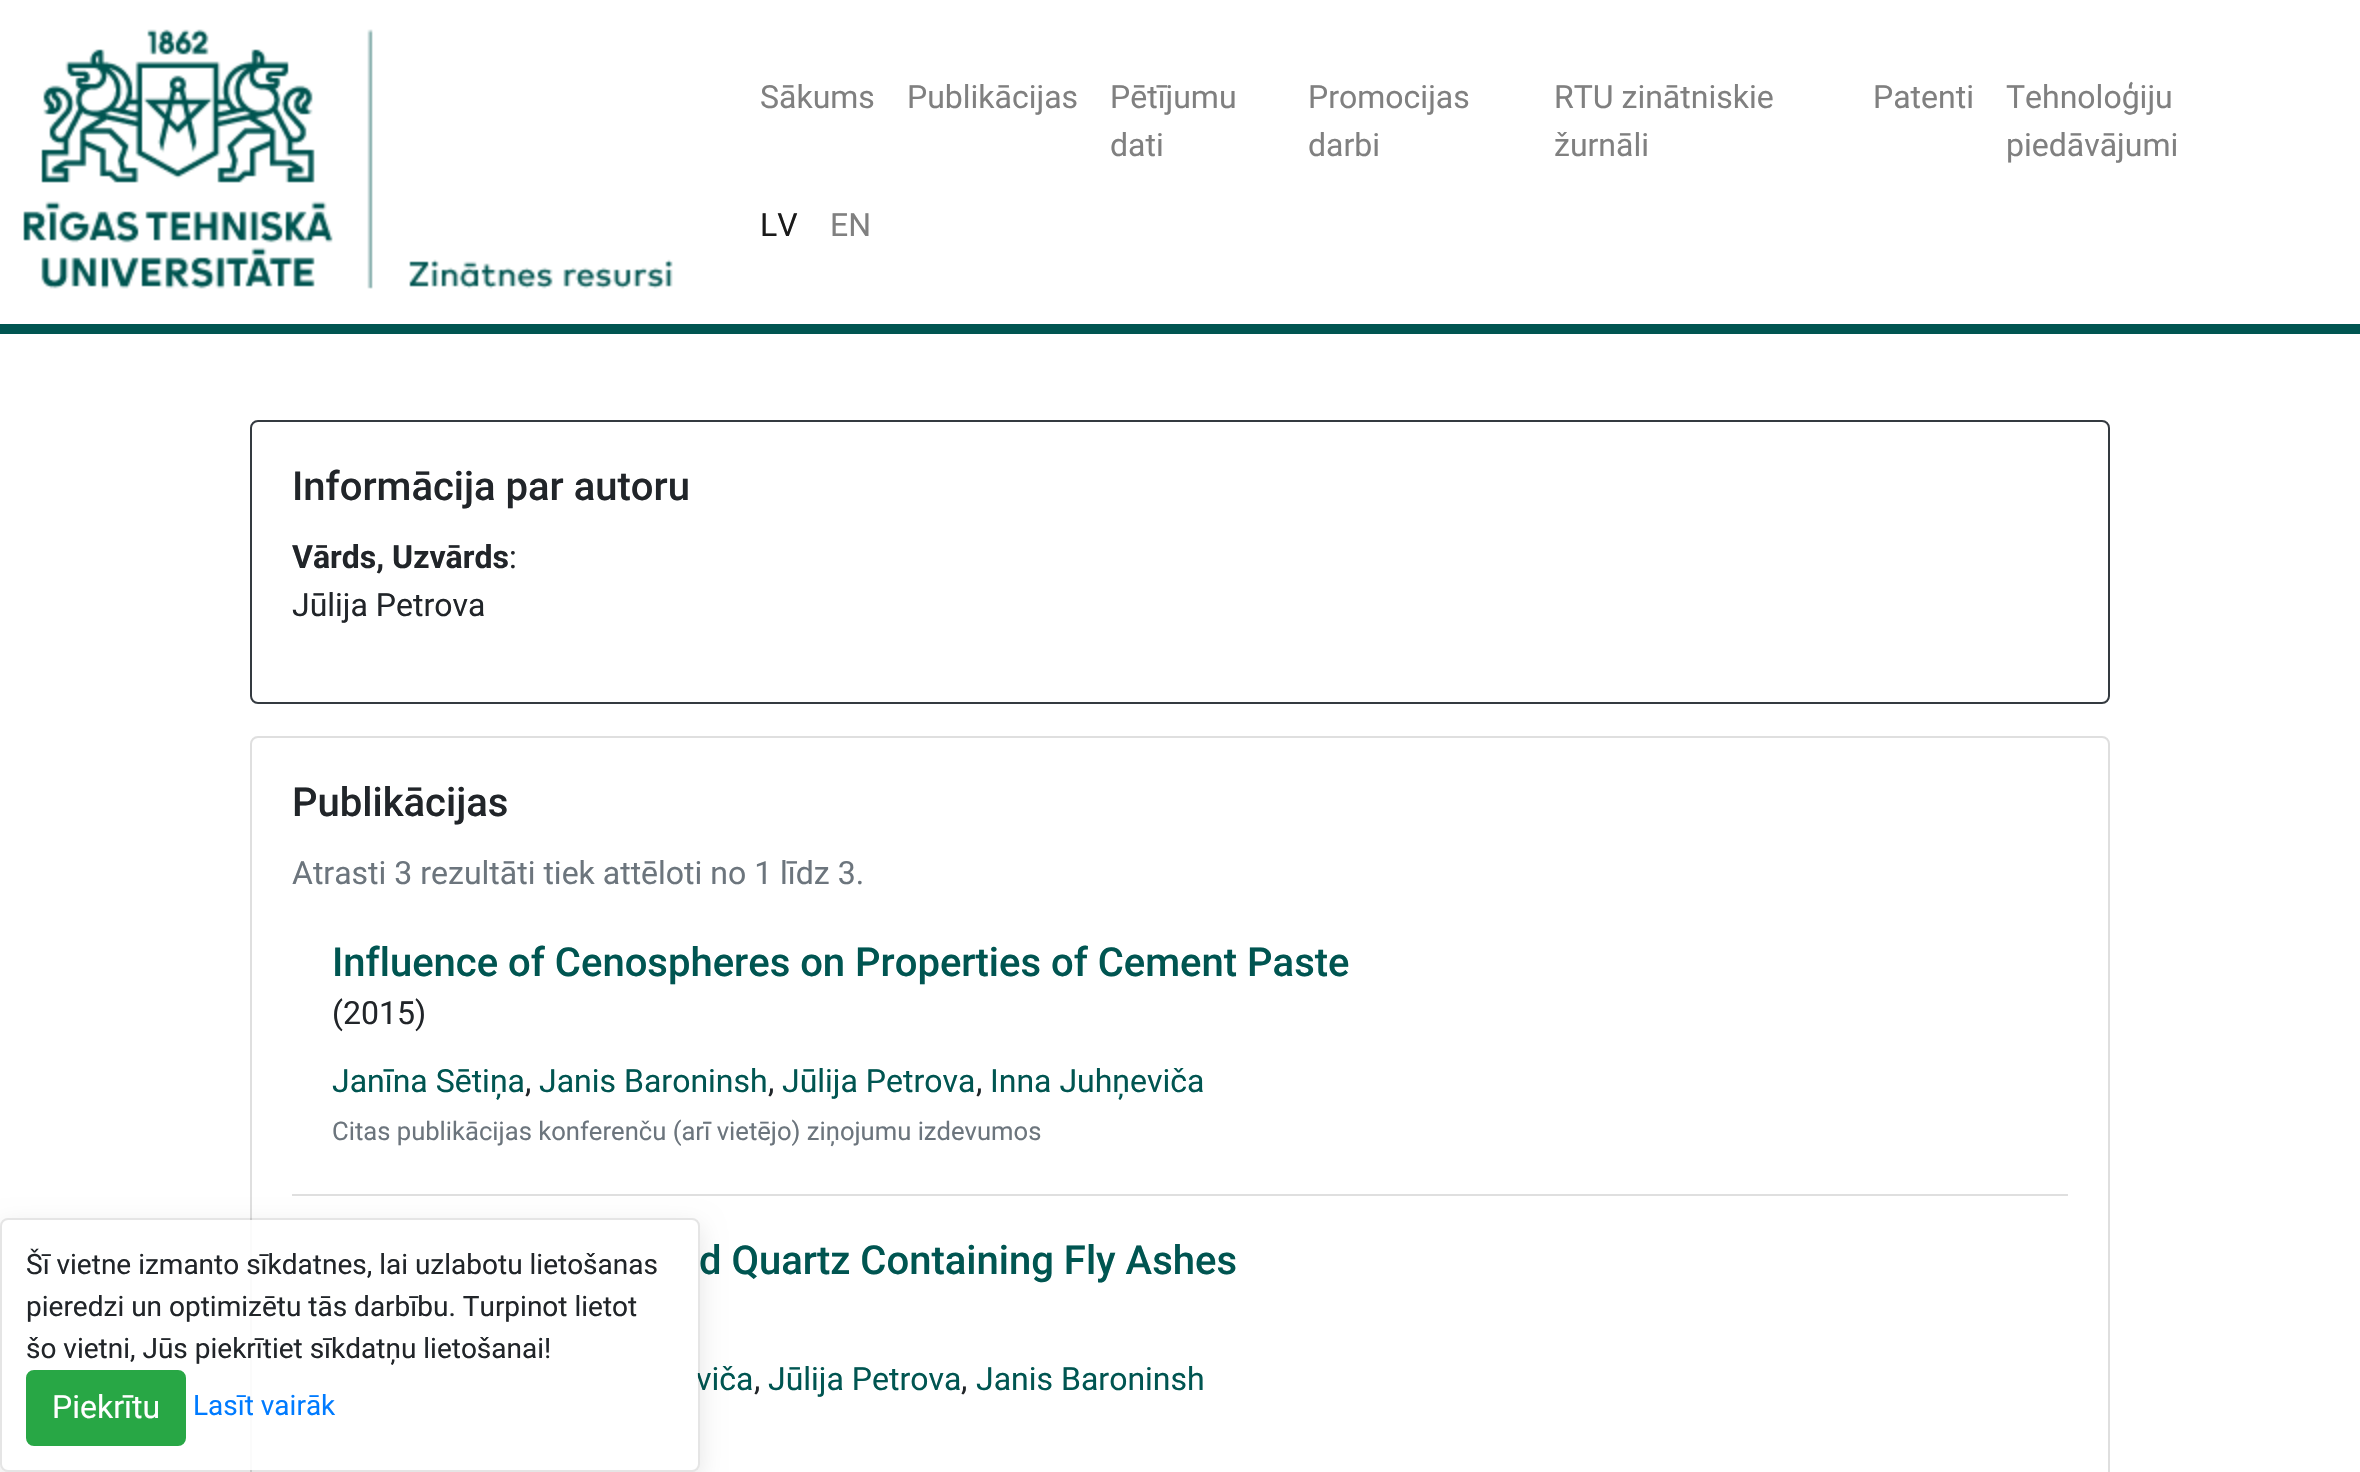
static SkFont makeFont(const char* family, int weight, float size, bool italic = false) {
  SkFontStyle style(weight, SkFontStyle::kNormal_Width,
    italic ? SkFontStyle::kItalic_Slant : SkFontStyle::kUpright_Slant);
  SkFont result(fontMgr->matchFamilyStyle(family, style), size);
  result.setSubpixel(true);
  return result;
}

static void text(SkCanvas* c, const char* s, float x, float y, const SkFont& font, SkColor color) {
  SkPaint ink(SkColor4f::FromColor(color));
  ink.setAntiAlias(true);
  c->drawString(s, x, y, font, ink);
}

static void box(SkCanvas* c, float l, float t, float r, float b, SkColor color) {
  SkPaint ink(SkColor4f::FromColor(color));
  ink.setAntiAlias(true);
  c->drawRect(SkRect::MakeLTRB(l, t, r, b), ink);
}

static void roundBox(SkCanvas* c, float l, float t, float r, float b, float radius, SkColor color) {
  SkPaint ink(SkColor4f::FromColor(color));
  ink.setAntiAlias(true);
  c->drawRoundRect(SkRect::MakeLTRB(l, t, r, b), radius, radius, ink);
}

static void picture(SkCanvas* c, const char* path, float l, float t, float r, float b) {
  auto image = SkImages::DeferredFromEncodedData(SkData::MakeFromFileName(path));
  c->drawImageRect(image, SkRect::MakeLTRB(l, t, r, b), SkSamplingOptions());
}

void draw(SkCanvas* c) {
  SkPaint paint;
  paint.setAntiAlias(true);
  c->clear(0xffffffff);
  box(c, 0, 324, 2360, 334, 0xff005551);
  picture(c, "img_01.png", 23, 29, 673, 289);
  SkFont face1 = makeFont("Roboto", 400, 32);
  text(c, "Sākums", 760, 108, face1, 0xff808080);
  text(c, "Publikācijas", 907, 108, face1, 0xff808080);
  text(c, "Pētījumu", 1110, 108, face1, 0xff808080);
  text(c, "dati", 1110, 156, face1, 0xff808080);
  text(c, "Promocijas", 1308, 108, face1, 0xff808080);
  text(c, "darbi", 1308, 156, face1, 0xff808080);
  text(c, "RTU zinātniskie", 1554, 108, face1, 0xff808080);
  text(c, "žurnāli", 1554, 156, face1, 0xff808080);
  text(c, "Patenti", 1873, 108, face1, 0xff808080);
  text(c, "Tehnoloģiju", 2006, 108, face1, 0xff808080);
  text(c, "piedāvājumi", 2006, 156, face1, 0xff808080);
  text(c, "LV", 760, 236, face1, 0xff1a1a1a);
  text(c, "EN", 830, 236, face1, 0xff808080);
  paint.setStyle(SkPaint::kStroke_Style);
  paint.setStrokeWidth(2);
  paint.setColor(0xff343a40);
  c->drawRoundRect(SkRect::MakeLTRB(251, 421, 2109, 703), 7, 7, paint);
  SkFont face2 = makeFont("Roboto", 500, 40);
  text(c, "Informācija par autoru", 292, 500, face2, 0xff212529);
  SkFont face3 = makeFont("Roboto", 700, 32);
  text(c, "Vārds, Uzvārds", 292, 568, face3, 0xff212529);
  text(c, ":", 509, 568, face1, 0xff212529);
  text(c, "Jūlija Petrova", 292, 616, face1, 0xff212529);
  paint.setColor(0xffdfdfdf);
  c->drawRoundRect(SkRect::MakeLTRB(251, 737, 2109, 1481), 7, 7, paint);
  text(c, "Publikācijas", 292, 816, face2, 0xff212529);
  text(c, "Atrasti 3 rezultāti tiek attēloti no 1 līdz 3.", 292, 884, face1, 0xff6c757d);
  box(c, 292, 1194, 2068, 1196, 0xffdfdfdf);
  text(c, "Influence of Cenospheres on Properties of Cement Paste", 332, 976, face2, 0xff005551);
  text(c, "(2015)", 332, 1024, face1, 0xff212529);
  text(c, "Janīna Sētiņa", 332, 1092, face1, 0xff005551);
  text(c, ",", 525, 1092, face1, 0xff212529);
  text(c, "Janis Baroninsh", 539, 1092, face1, 0xff005551);
  text(c, ",", 768, 1092, face1, 0xff212529);
  text(c, "Jūlija Petrova", 782, 1092, face1, 0xff005551);
  text(c, ",", 976, 1092, face1, 0xff212529);
  text(c, "Inna Juhņeviča", 990, 1092, face1, 0xff005551);
  SkFont face4 = makeFont("Roboto", 400, 25.6f);
  text(c, "Citas publikācijas konferenču (arī vietējo) ziņojumu izdevumos", 332, 1140, face4, 0xff6c757d);
  text(c, "d Quartz Containing Fly Ashes", 699, 1274, face2, 0xff005551);
  text(c, "viča", 696, 1390, face1, 0xff005551);
  text(c, ",", 754, 1390, face1, 0xff212529);
  text(c, "Jūlija Petrova", 768, 1390, face1, 0xff005551);
  text(c, ",", 961, 1390, face1, 0xff212529);
  text(c, "Janis Baroninsh", 976, 1390, face1, 0xff005551);
  c->save();
  c->clipPath(SkPathBuilder(SkPathFillType::kEvenOdd).moveTo(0, 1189).lineTo(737, 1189).lineTo(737, 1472).lineTo(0, 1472).close().moveTo(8, 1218).lineTo(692, 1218).cubicTo(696.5f, 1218, 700, 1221.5f, 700, 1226).lineTo(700, 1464).cubicTo(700, 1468.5f, 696.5f, 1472, 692, 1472).lineTo(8, 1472).cubicTo(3.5f, 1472, 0, 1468.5f, 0, 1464).lineTo(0, 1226).cubicTo(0, 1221.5f, 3.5f, 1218, 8, 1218).close().detach(), true);
  paint.setStyle(SkPaint::kFill_Style);
  paint.setColor(0x1a000000);
  paint.setMaskFilter(SkMaskFilter::MakeBlur(kNormal_SkBlurStyle, 12));
  c->drawRoundRect(SkRect::MakeLTRB(0, 1226, 700, 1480), 8, 8, paint);
  paint.setMaskFilter(nullptr);
  c->restore();
  roundBox(c, 2, 1220, 698, 1470, 6, 0xd9ffffff);
  paint.setStyle(SkPaint::kStroke_Style);
  c->drawRoundRect(SkRect::MakeLTRB(1, 1219, 699, 1471), 7, 7, paint);
  SkFont face5 = makeFont("Roboto", 400, 28);
  text(c, "Šī vietne izmanto sīkdatnes, lai uzlabotu lietošanas", 26, 1274, face5, 0xff212529);
  text(c, "pieredzi un optimizētu tās darbību. Turpinot lietot", 26, 1316, face5, 0xff212529);
  text(c, "šo vietni, Jūs piekrītiet sīkdatņu lietošanai!", 26, 1358, face5, 0xff212529);
  paint.setStyle(SkPaint::kFill_Style);
  paint.setColor(0xff28a745);
  c->drawRoundRect(SkRect::MakeLTRB(27, 1371, 185, 1445), 7, 7, paint);
  paint.setStyle(SkPaint::kStroke_Style);
  c->drawRoundRect(SkRect::MakeLTRB(27, 1371, 185, 1445), 7, 7, paint);
  text(c, "Piekrītu", 52, 1418, face1, 0xffffffff);
  text(c, "Lasīt vairāk", 193, 1415, face5, 0xff007bff);
}
